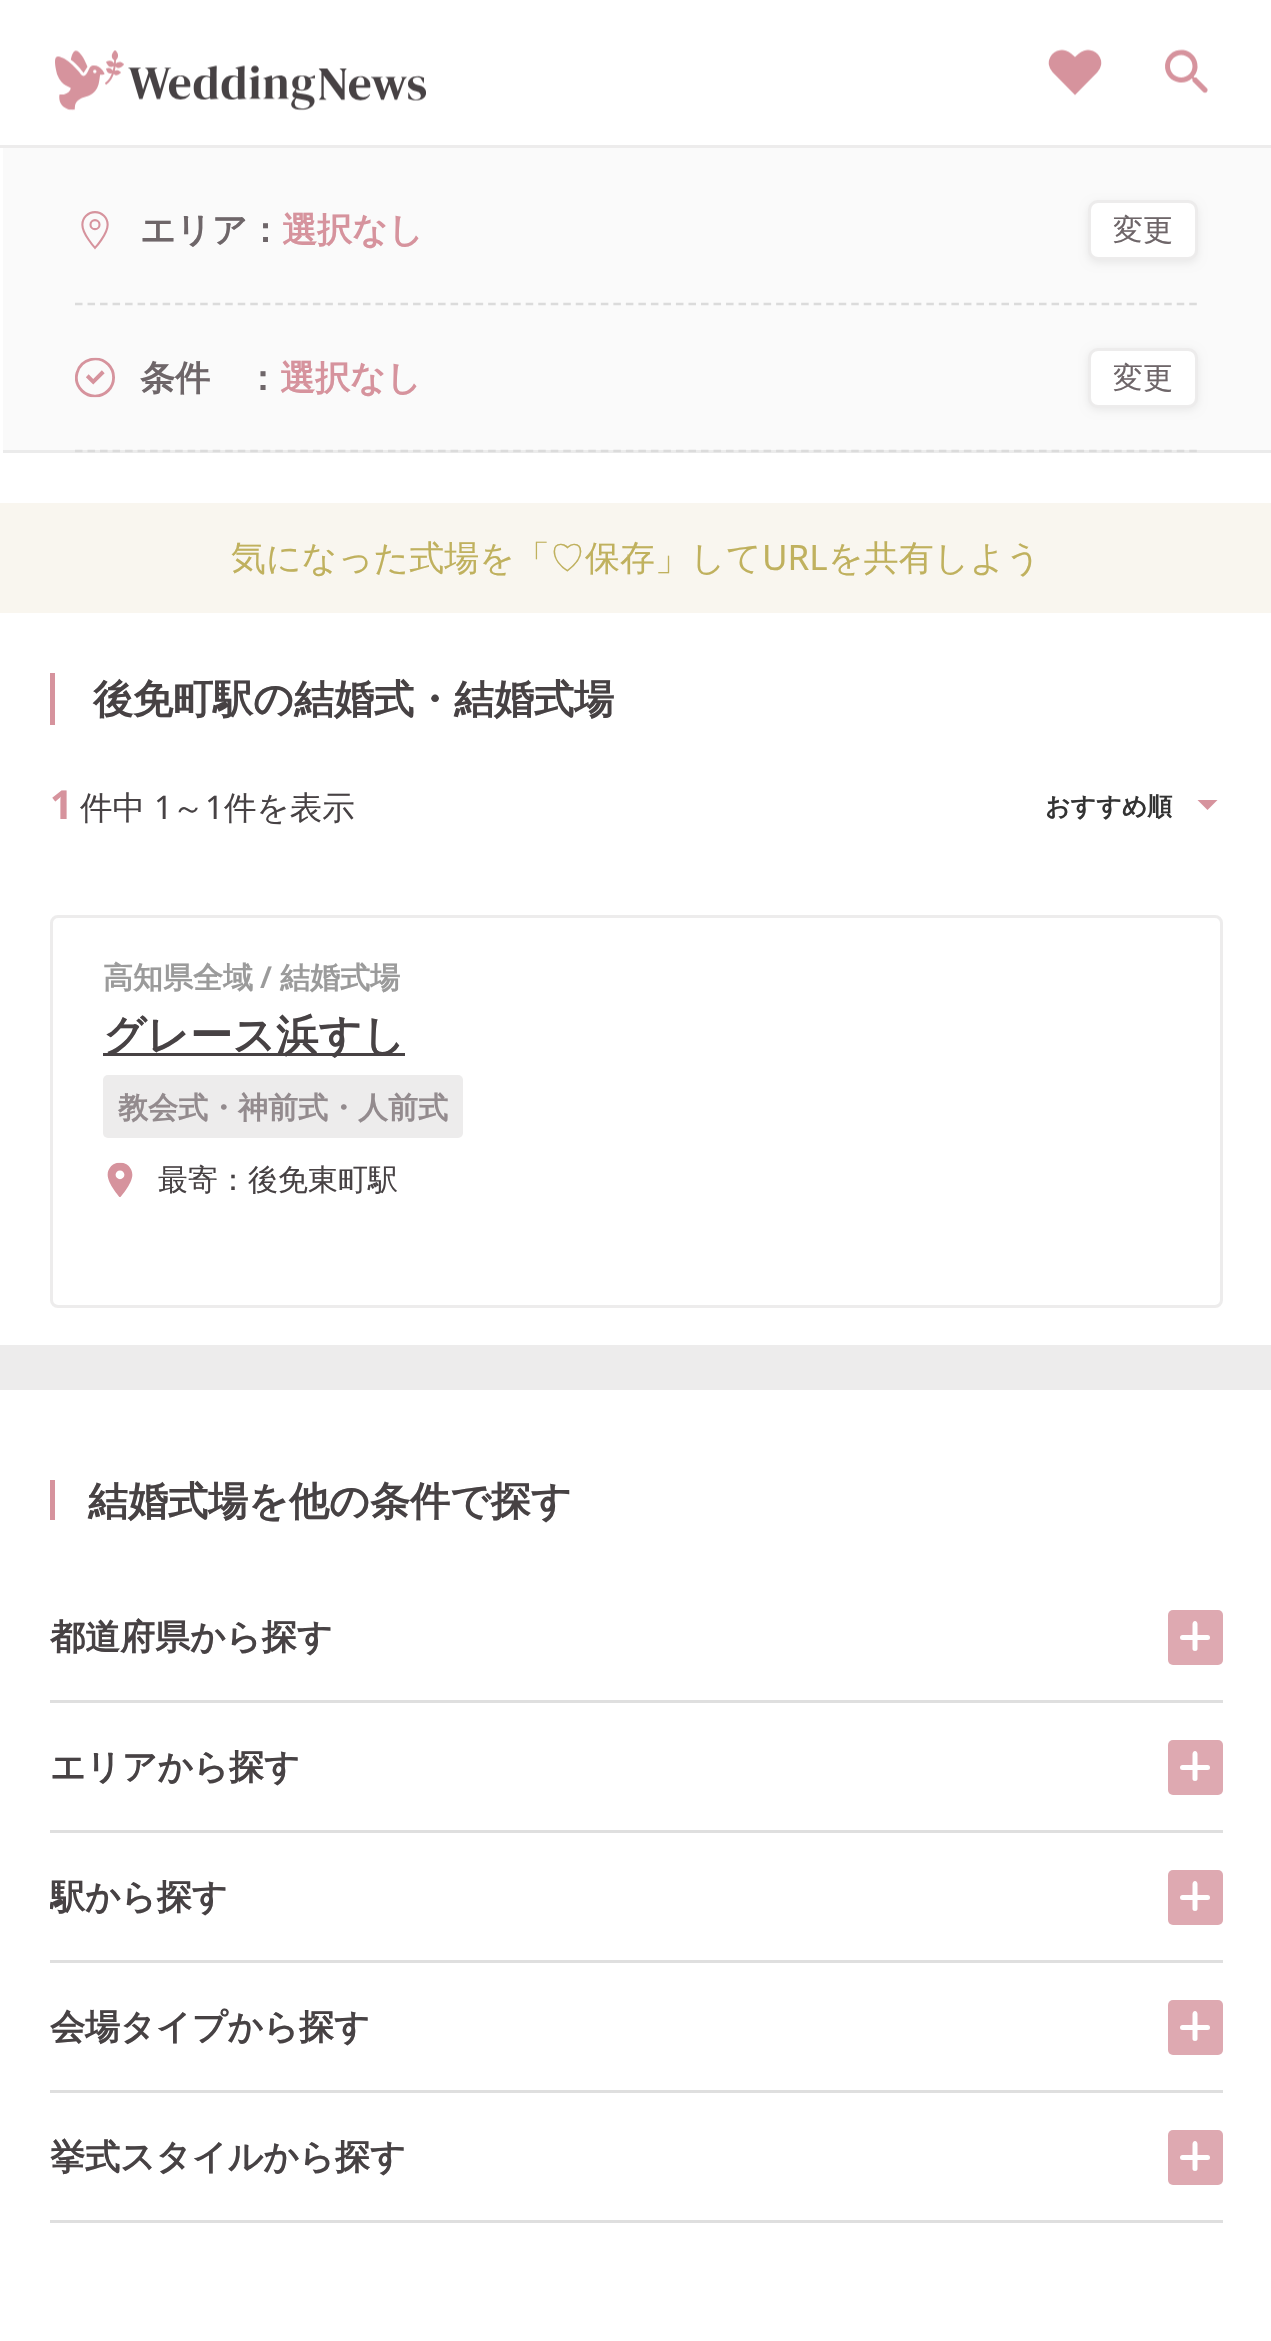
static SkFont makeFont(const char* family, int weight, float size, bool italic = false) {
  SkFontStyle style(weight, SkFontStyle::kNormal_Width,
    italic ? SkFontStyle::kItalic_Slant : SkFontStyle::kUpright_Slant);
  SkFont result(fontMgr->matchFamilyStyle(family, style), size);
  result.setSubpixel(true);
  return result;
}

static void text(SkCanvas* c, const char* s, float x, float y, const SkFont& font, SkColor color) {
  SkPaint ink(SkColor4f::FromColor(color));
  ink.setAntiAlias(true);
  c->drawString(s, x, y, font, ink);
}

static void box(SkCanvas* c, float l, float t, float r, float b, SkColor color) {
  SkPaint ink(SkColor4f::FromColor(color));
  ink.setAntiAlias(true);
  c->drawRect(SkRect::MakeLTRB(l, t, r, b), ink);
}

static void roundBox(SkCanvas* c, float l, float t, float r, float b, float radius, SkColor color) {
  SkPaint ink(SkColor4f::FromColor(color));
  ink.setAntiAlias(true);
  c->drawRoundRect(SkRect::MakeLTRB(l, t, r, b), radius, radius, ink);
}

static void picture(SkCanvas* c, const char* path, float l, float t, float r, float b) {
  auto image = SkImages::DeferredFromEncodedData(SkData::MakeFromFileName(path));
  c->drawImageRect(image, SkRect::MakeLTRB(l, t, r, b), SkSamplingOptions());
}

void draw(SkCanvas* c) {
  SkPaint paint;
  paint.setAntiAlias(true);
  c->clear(0xffffffff);
  box(c, 0, 145, 1271, 148, 0xffedecec);
  picture(c, "img_01.png", 55, 50, 426, 111);
  picture(c, "img_02.png", 1048, 49, 1102, 96);
  picture(c, "img_03.png", 1165, 49, 1208, 94);
  box(c, 3, 148, 1271, 450, 0xfffafafa);
  box(c, 3, 450, 1271, 453, 0xffebebeb);
  paint.setStyle(SkPaint::kStroke_Style);
  paint.setStrokeWidth(2.5f);
  paint.setColor(0xffdbdbdb);
  paint.setPathEffect(SkDashPathEffect::Make({{7.5f, 5.02f}}, 0));
  c->drawPath(SkPathBuilder().moveTo(75, 304).lineTo(1197.5f, 304).detach(), paint);
  paint.setPathEffect(nullptr);
  picture(c, "img_04.png", 81, 211, 109, 250);
  SkFont face1 = makeFont("WenQuanYi Zen Hei", 700, 35);
  text(c, "エリア：", 140, 242, face1, 0xff6e6669);
  text(c, "選択なし", 282, 242, face1, 0xffd6939d);
  paint.setStyle(SkPaint::kFill_Style);
  paint.setColor(0x12000000);
  paint.setMaskFilter(SkMaskFilter::MakeBlur(kNormal_SkBlurStyle, 4));
  c->drawRoundRect(SkRect::MakeLTRB(1088, 203, 1198, 263), 10, 10, paint);
  paint.setMaskFilter(nullptr);
  paint.setColor(0xffffffff);
  c->drawRoundRect(SkRect::MakeLTRB(1089.5f, 201.5f, 1196.5f, 258.5f), 8.5f, 8.5f, paint);
  paint.setStyle(SkPaint::kStroke_Style);
  paint.setStrokeWidth(3);
  paint.setColor(0xffedecec);
  c->drawRoundRect(SkRect::MakeLTRB(1089.5f, 201.5f, 1196.5f, 258.5f), 8.5f, 8.5f, paint);
  SkFont face2 = makeFont("WenQuanYi Zen Hei", 500, 30);
  text(c, "変更", 1113, 240, face2, 0xff6e6669);
  paint.setStrokeWidth(2.5f);
  paint.setColor(0xffdbdbdb);
  paint.setPathEffect(SkDashPathEffect::Make({{7.5f, 5.02f}}, 0));
  c->drawPath(SkPathBuilder().moveTo(75, 451).lineTo(1197.5f, 451).detach(), paint);
  paint.setPathEffect(nullptr);
  picture(c, "img_05.png", 75, 357, 115, 398);
  text(c, "条件", 140, 390, face1, 0xff6e6669);
  text(c, "：", 245, 390, face1, 0xff6e6669);
  text(c, "選択なし", 280, 390, face1, 0xffd6939d);
  paint.setStyle(SkPaint::kFill_Style);
  paint.setColor(0x12000000);
  paint.setMaskFilter(SkMaskFilter::MakeBlur(kNormal_SkBlurStyle, 4));
  c->drawRoundRect(SkRect::MakeLTRB(1088, 350, 1198, 410), 10, 10, paint);
  paint.setMaskFilter(nullptr);
  paint.setColor(0xffffffff);
  c->drawRoundRect(SkRect::MakeLTRB(1089.5f, 349.5f, 1196.5f, 406.5f), 8.5f, 8.5f, paint);
  paint.setStyle(SkPaint::kStroke_Style);
  paint.setStrokeWidth(3);
  paint.setColor(0xffedecec);
  c->drawRoundRect(SkRect::MakeLTRB(1089.5f, 349.5f, 1196.5f, 406.5f), 8.5f, 8.5f, paint);
  text(c, "変更", 1113, 388, face2, 0xff6e6669);
  box(c, 0, 503, 1271, 613, 0xfff9f6ef);
  SkFont face3 = makeFont("WenQuanYi Zen Hei", 500, 35);
  text(c, "気になった式場を「♡保存」して", 231, 570, face3, 0xffc0b15e);
  SkFont face4 = makeFont("Noto Sans", 400, 35);
  text(c, "URL", 762, 570, face4, 0xffc0b15e);
  text(c, "を共有しよう", 828, 570, face3, 0xffc0b15e);
  box(c, 50, 673, 55, 725, 0xffd6939d);
  SkFont face5 = makeFont("WenQuanYi Zen Hei", 700, 40);
  text(c, "後免町駅の結婚式・結婚式場", 93, 713, face5, 0xff474244);
  SkFont face6 = makeFont("Noto Sans", 700, 40);
  text(c, "1", 50, 819, face6, 0xffd6939d);
  SkFont face7 = makeFont("WenQuanYi Zen Hei", 500, 32.5f);
  text(c, "件中", 80, 819, face7, 0xff474244);
  SkFont face8 = makeFont("Noto Sans", 400, 32.5f);
  text(c, "1", 154, 819, face8, 0xff474244);
  text(c, "～", 172, 819, face7, 0xff474244);
  text(c, "1", 205, 819, face8, 0xff474244);
  text(c, "件を表示", 224, 819, face7, 0xff474244);
  SkFont face9 = makeFont("WenQuanYi Zen Hei", 700, 25);
  text(c, "おすすめ順", 1045, 815, face9, 0xff333333);
  paint.setStyle(SkPaint::kFill_Style);
  paint.setColor(0xffd6939d);
  c->drawPath(SkPathBuilder().moveTo(1197.5f, 800).lineTo(1217.5f, 800).lineTo(1207.5f, 810).close().detach(), paint);
  paint.setStyle(SkPaint::kStroke_Style);
  paint.setColor(0xffedecec);
  c->drawRoundRect(SkRect::MakeLTRB(51.5f, 916.5f, 1221.5f, 1306.5f), 6.5f, 6.5f, paint);
  SkFont face10 = makeFont("WenQuanYi Zen Hei", 700, 30);
  text(c, "高知県全域", 103, 988, face10, 0xff9b9b9b);
  SkFont face11 = makeFont("Noto Sans", 600, 30);
  text(c, "/", 260, 988, face11, 0xff9b9b9b);
  text(c, "結婚式場", 280, 988, face10, 0xff9b9b9b);
  box(c, 103, 1053, 405, 1056, 0xff474244);
  SkFont face12 = makeFont("WenQuanYi Zen Hei", 700, 42.5f);
  text(c, "グレース浜すし", 103, 1050, face12, 0xff474244);
  roundBox(c, 103, 1075, 463, 1138, 5, 0xffedecec);
  text(c, "教会式・神前式・人前式", 118, 1118, face10, 0xff938b8e);
  picture(c, "img_06.png", 107, 1162, 133, 1197);
  text(c, "最寄：後免東町駅", 158, 1190, face2, 0xff474244);
  box(c, 0, 1345, 1271, 1390, 0xffedecec);
  box(c, 50, 1480, 55, 1520, 0xffd6939d);
  text(c, "結婚式場を他の条件で探す", 88, 1515, face5, 0xff474244);
  box(c, 50, 1700, 1223, 1703, 0xffdfdfdf);
  text(c, "都道府県から探す", 50, 1649, face1, 0xff474244);
  roundBox(c, 1168, 1610, 1223, 1665, 5, 0xffdea9b1);
  roundBox(c, 1180, 1635, 1210, 1640, 2.5f, 0xffffffff);
  paint.setStyle(SkPaint::kFill_Style);
  paint.setColor(0xffffffff);
  c->drawPath(SkPathBuilder().moveTo(1197.5f, 1624).lineTo(1197.5f, 1649).cubicTo(1197.5f, 1650, 1196.5f, 1651, 1195, 1651).cubicTo(1193.5f, 1651, 1192.5f, 1650, 1192.5f, 1649).lineTo(1192.5f, 1624).cubicTo(1192.5f, 1622.5f, 1193.5f, 1621, 1195, 1621).cubicTo(1196.5f, 1621, 1197.5f, 1622.5f, 1197.5f, 1624).close().detach(), paint);
  box(c, 50, 1830, 1223, 1833, 0xffdfdfdf);
  text(c, "エリアから探す", 50, 1779, face1, 0xff474244);
  roundBox(c, 1168, 1740, 1223, 1795, 5, 0xffdea9b1);
  roundBox(c, 1180, 1765, 1210, 1770, 2.5f, 0xffffffff);
  c->drawPath(SkPathBuilder().moveTo(1197.5f, 1754).lineTo(1197.5f, 1779).cubicTo(1197.5f, 1780, 1196.5f, 1781, 1195, 1781).cubicTo(1193.5f, 1781, 1192.5f, 1780, 1192.5f, 1779).lineTo(1192.5f, 1754).cubicTo(1192.5f, 1752.5f, 1193.5f, 1751, 1195, 1751).cubicTo(1196.5f, 1751, 1197.5f, 1752.5f, 1197.5f, 1754).close().detach(), paint);
  box(c, 50, 1960, 1223, 1963, 0xffdfdfdf);
  c->save();
  c->clipRect(SkRect::MakeLTRB(50, 1863, 228, 1933));
  text(c, "駅から探す", 50, 1909, face1, 0xff474244);
  c->restore();
  roundBox(c, 1168, 1870, 1223, 1925, 5, 0xffdea9b1);
  roundBox(c, 1180, 1895, 1210, 1900, 2.5f, 0xffffffff);
  c->drawPath(SkPathBuilder().moveTo(1197.5f, 1884).lineTo(1197.5f, 1909).cubicTo(1197.5f, 1910, 1196.5f, 1911, 1195, 1911).cubicTo(1193.5f, 1911, 1192.5f, 1910, 1192.5f, 1909).lineTo(1192.5f, 1884).cubicTo(1192.5f, 1882.5f, 1193.5f, 1881, 1195, 1881).cubicTo(1196.5f, 1881, 1197.5f, 1882.5f, 1197.5f, 1884).close().detach(), paint);
  box(c, 50, 2090, 1223, 2093, 0xffdfdfdf);
  text(c, "会場タイプから探す", 50, 2039, face1, 0xff474244);
  roundBox(c, 1168, 2000, 1223, 2055, 5, 0xffdea9b1);
  roundBox(c, 1180, 2025, 1210, 2030, 2.5f, 0xffffffff);
  c->drawPath(SkPathBuilder().moveTo(1197.5f, 2014).lineTo(1197.5f, 2039).cubicTo(1197.5f, 2040, 1196.5f, 2041, 1195, 2041).cubicTo(1193.5f, 2041, 1192.5f, 2040, 1192.5f, 2039).lineTo(1192.5f, 2014).cubicTo(1192.5f, 2012.5f, 1193.5f, 2011, 1195, 2011).cubicTo(1196.5f, 2011, 1197.5f, 2012.5f, 1197.5f, 2014).close().detach(), paint);
  box(c, 50, 2220, 1223, 2223, 0xffdfdfdf);
  text(c, "挙式スタイルから探す", 50, 2169, face1, 0xff474244);
  roundBox(c, 1168, 2130, 1223, 2185, 5, 0xffdea9b1);
  roundBox(c, 1180, 2155, 1210, 2160, 2.5f, 0xffffffff);
  c->drawPath(SkPathBuilder().moveTo(1197.5f, 2144).lineTo(1197.5f, 2169).cubicTo(1197.5f, 2170, 1196.5f, 2171, 1195, 2171).cubicTo(1193.5f, 2171, 1192.5f, 2170, 1192.5f, 2169).lineTo(1192.5f, 2144).cubicTo(1192.5f, 2142.5f, 1193.5f, 2141, 1195, 2141).cubicTo(1196.5f, 2141, 1197.5f, 2142.5f, 1197.5f, 2144).close().detach(), paint);
}
